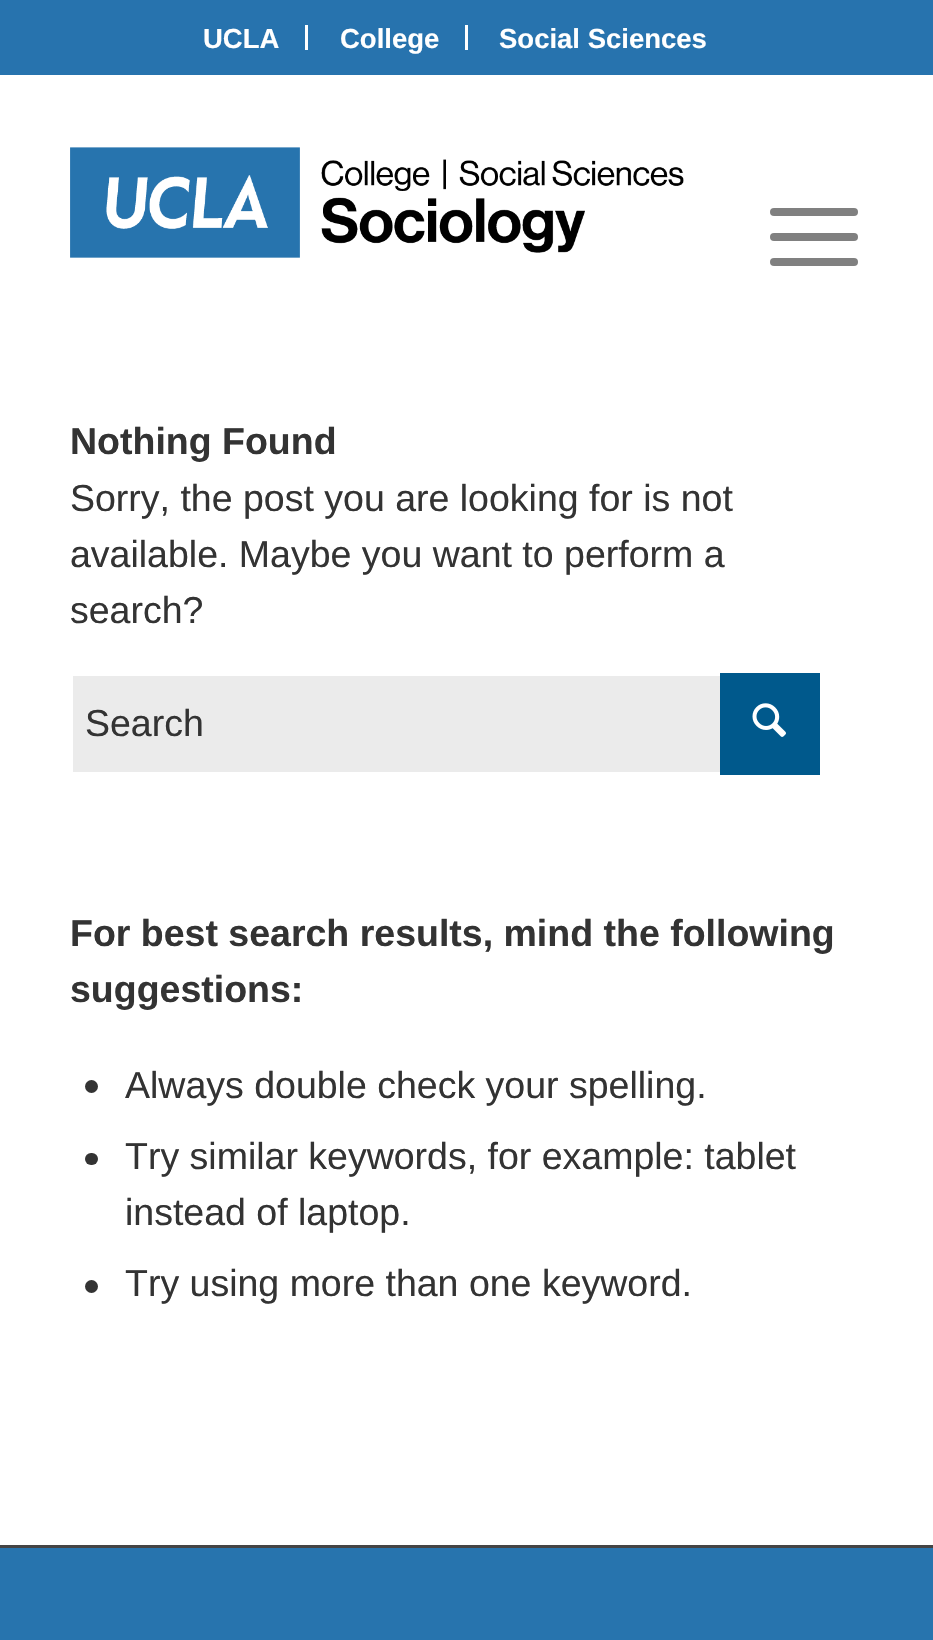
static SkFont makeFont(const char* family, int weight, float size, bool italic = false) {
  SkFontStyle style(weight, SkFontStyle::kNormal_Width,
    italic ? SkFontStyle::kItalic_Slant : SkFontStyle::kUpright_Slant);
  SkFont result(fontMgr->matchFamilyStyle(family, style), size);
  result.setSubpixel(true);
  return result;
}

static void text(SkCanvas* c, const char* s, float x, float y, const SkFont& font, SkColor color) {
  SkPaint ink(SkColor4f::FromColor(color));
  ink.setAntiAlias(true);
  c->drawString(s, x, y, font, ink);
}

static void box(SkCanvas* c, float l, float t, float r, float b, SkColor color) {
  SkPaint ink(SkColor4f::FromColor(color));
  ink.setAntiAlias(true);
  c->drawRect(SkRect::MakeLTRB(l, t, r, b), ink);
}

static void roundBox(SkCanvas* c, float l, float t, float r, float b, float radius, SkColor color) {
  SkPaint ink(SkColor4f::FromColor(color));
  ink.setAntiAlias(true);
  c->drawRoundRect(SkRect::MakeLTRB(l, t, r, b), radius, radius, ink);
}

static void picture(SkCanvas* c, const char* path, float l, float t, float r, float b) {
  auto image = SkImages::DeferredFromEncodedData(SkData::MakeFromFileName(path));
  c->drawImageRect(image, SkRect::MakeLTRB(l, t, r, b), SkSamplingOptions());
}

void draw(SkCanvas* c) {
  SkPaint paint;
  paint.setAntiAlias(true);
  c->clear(0xffffffff);
  box(c, 0, 0, 933, 75, 0xff2773ae);
  box(c, 305, 25, 308, 50, 0xffffffff);
  SkFont face1 = makeFont("Liberation Sans", 700, 27.5f);
  text(c, "UCLA", 203, 48, face1, 0xffffffff);
  box(c, 465, 25, 468, 50, 0xffffffff);
  text(c, "College", 340, 48, face1, 0xffffffff);
  text(c, "Social Sciences", 499, 48, face1, 0xffffffff);
  picture(c, "img_01.png", 70, 147, 684, 258);
  roundBox(c, 770, 233, 858, 241, 4, 0xff808080);
  roundBox(c, 770, 208, 858, 216, 4, 0xff808080);
  roundBox(c, 770, 258, 858, 266, 4, 0xff808080);
  SkFont face2 = makeFont("Liberation Sans", 700, 37.5f);
  text(c, "Nothing Found", 70, 454, face2, 0xff333333);
  SkFont face3 = makeFont("Liberation Sans", 400, 37.5f);
  text(c, "Sorry, the post you are looking for is not", 70, 511, face3, 0xff333333);
  text(c, "available. Maybe you want to perform a", 70, 567, face3, 0xff333333);
  text(c, "search?", 70, 623, face3, 0xff333333);
  box(c, 73, 676, 720, 772, 0xffebebeb);
  text(c, "Search", 85, 736, face3, 0xff333333);
  box(c, 720, 673, 820, 775, 0xff00598c);
  picture(c, "img_02.png", 752, 703, 786, 737);
  text(c, "For best search results, mind the following", 70, 946, face2, 0xff333333);
  text(c, "suggestions:", 70, 1002, face2, 0xff333333);
  paint.setColor(0xff333333);
  c->drawCircle(91.5f, 1086.5f, 6.5f, paint);
  text(c, "Always double check your spelling.", 125, 1098, face3, 0xff333333);
  roundBox(c, 85, 1153, 98, 1165, 6, 0xff333333);
  text(c, "Try similar keywords, for example: tablet", 125, 1169, face3, 0xff333333);
  text(c, "instead of laptop.", 125, 1225, face3, 0xff333333);
  c->drawCircle(91.5f, 1286.5f, 6.5f, paint);
  text(c, "Try using more than one keyword.", 125, 1296, face3, 0xff333333);
  box(c, 0, 1548, 933, 1640, 0xff2774ae);
  box(c, 0, 1545, 933, 1548, 0xff444444);
}
